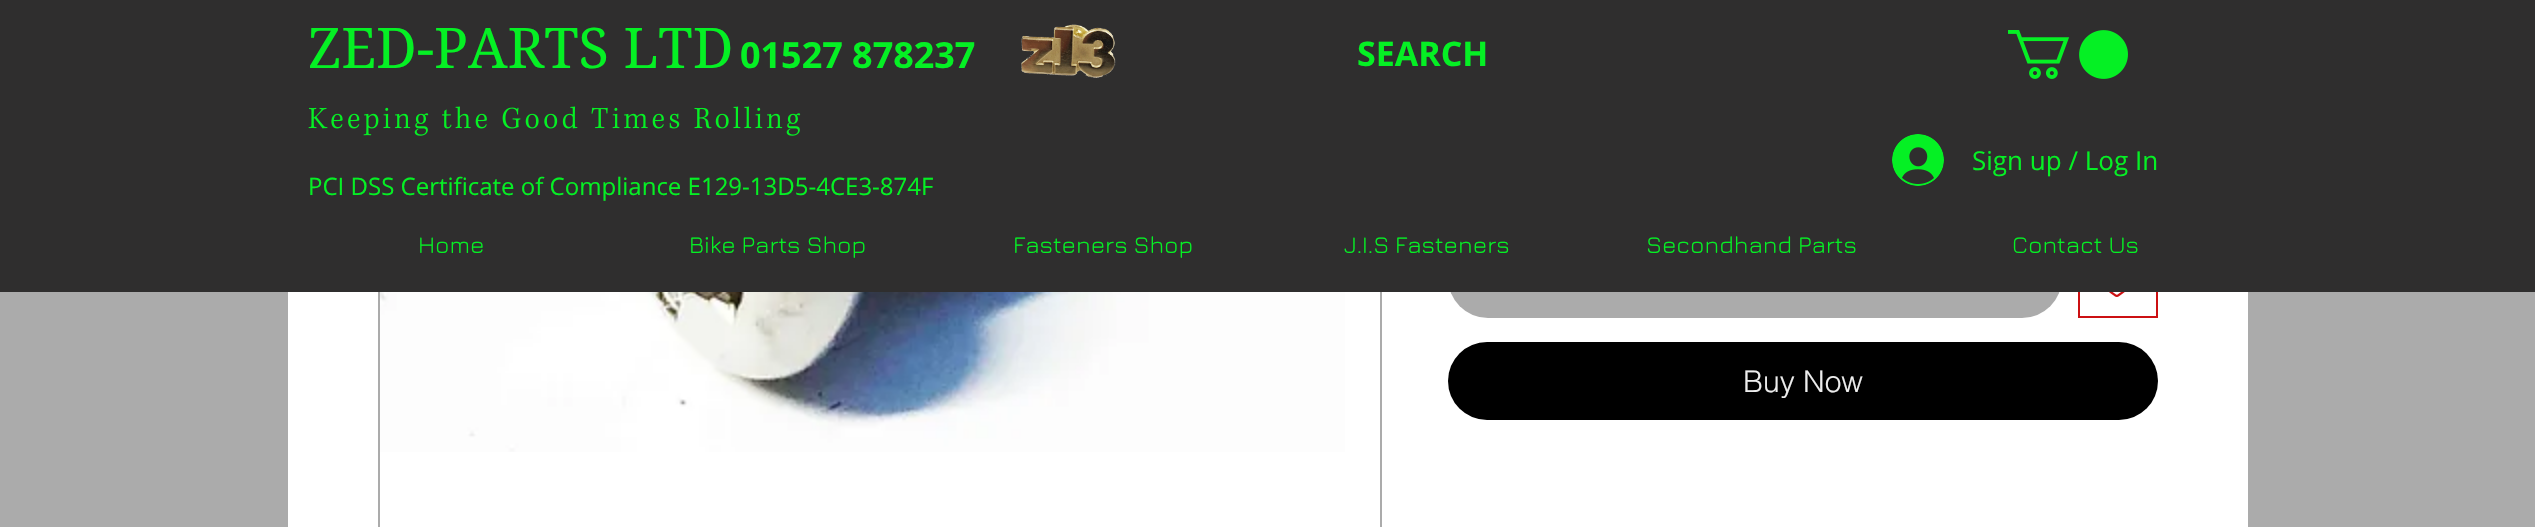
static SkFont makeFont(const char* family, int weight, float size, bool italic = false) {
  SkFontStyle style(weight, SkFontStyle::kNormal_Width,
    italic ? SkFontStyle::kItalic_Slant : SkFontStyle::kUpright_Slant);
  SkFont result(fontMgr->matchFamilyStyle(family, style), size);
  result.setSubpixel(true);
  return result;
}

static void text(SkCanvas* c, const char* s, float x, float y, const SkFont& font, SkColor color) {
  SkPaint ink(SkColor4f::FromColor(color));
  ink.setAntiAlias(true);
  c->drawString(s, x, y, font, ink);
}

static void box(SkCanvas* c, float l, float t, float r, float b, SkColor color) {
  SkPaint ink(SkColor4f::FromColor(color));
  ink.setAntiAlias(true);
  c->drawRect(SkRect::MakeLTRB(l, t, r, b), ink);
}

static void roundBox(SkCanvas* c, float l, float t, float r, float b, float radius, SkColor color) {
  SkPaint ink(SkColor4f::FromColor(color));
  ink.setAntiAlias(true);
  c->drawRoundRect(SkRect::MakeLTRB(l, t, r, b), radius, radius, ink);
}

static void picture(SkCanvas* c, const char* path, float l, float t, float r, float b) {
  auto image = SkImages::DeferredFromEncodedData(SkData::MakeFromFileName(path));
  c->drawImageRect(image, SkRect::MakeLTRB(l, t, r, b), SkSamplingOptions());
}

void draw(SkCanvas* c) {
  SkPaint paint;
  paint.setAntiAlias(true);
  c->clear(0xffababab);
  box(c, 288, 292, 2248, 527, 0xffffffff);
  paint.setStyle(SkPaint::kStroke_Style);
  paint.setStrokeWidth(2);
  paint.setColor(0xffababab);
  c->drawRect(SkRect::MakeLTRB(379, -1, 1381, 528), paint);
  roundBox(c, 1448, 236, 2062, 318, 40, 0xffababab);
  paint.setColor(0xffcc1013);
  c->drawRect(SkRect::MakeLTRB(2079, 237, 2157, 317), paint);
  box(c, 0, 0, 2535, 292, 0xff2f2e2e);
  SkFont face1 = makeFont("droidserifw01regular", 400, 56);
  text(c, "ZED-PARTS LTD", 308, 68, face1, 0xff05f024);
  SkFont face2 = makeFont("Open Sans", 700, 36);
  text(c, "01527 878237", 740, 68, face2, 0xff05f024);
  picture(c, "img_01.png", 1021, 24, 1116, 78);
  SkFont face3 = makeFont("Open Sans", 700, 34);
  text(c, "SEARCH", 1357, 66, face3, 0xff05f024);
  picture(c, "img_02.png", 2008, 30, 2128, 79);
  picture(c, "img_03.png", 308, 106, 801, 136);
  picture(c, "img_04.png", 1892, 134, 1944, 186);
  SkFont face4 = makeFont("Open Sans", 400, 26);
  text(c, "Sign up / Log In", 1972, 170, face4, 0xff05f024);
  SkFont face5 = makeFont("Open Sans", 400, 24);
  text(c, "PCI DSS Certificate of Compliance E129-13D5-4CE3-874F", 308, 195, face5, 0xff05f024);
  SkFont face6 = makeFont("Jura", 400, 24);
  text(c, "Home", 418, 253, face6, 0xff05f024);
  text(c, "Bike Parts Shop", 689, 253, face6, 0xff05f024);
  text(c, "Fasteners Shop", 1013, 253, face6, 0xff05f024);
  text(c, "J.I.S Fasteners", 1344, 253, face6, 0xff05f024);
  text(c, "Secondhand Parts", 1646, 253, face6, 0xff05f024);
  text(c, "Contact Us", 2012, 253, face6, 0xff05f024);
  picture(c, "img_05.png", 380, 292, 1345, 452);
  picture(c, "img_06.png", 2109, 292, 2125, 297);
  roundBox(c, 1448, 342, 2158, 420, 39, 0xff000000);
  SkFont face7 = makeFont("helvetica", 300, 30);
  text(c, "Buy Now", 1743, 392, face7, 0xffededed);
}
